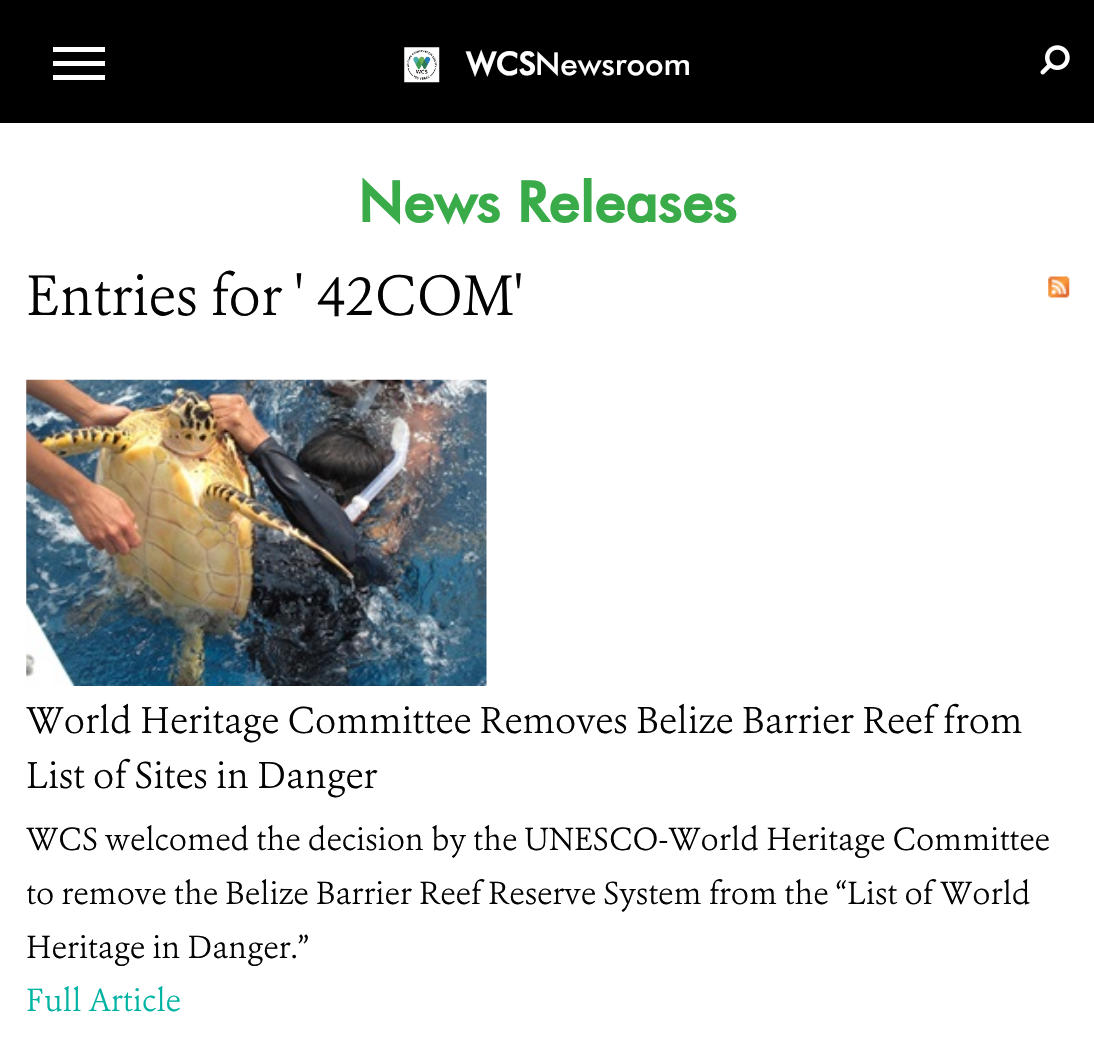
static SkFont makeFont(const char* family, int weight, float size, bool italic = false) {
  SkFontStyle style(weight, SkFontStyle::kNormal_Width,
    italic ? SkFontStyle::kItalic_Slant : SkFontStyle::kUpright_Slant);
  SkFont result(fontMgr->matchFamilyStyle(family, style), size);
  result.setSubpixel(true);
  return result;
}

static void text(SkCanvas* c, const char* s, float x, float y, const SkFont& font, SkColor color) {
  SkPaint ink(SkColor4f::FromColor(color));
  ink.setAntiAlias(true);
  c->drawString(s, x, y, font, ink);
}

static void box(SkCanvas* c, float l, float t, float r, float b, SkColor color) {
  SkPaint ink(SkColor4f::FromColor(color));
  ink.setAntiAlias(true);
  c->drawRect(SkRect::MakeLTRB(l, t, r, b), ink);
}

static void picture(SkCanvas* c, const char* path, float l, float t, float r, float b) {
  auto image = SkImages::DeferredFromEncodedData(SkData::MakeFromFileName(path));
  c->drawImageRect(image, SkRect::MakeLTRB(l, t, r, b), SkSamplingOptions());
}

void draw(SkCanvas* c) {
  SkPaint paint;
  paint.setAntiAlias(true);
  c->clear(0xffffffff);
  box(c, 0, 0, 1094, 123, 0xff000000);
  box(c, 53, 47, 105, 52, 0xffffffff);
  box(c, 53, 61, 105, 66, 0xffffffff);
  box(c, 53, 75, 105, 80, 0xffffffff);
  picture(c, "img_01.png", 1040, 45, 1070, 75);
  picture(c, "img_02.png", 404, 47, 440, 83);
  SkFont face1 = makeFont("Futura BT", 700, 31.5f);
  text(c, "WCS", 466, 75, face1, 0xffffffff);
  SkFont face2 = makeFont("Futura BT", 500, 31.5f);
  text(c, "Newsroom", 535, 75, face2, 0xffffffff);
  SkFont face3 = makeFont("Futura BT", 700, 56);
  text(c, "News Releases", 358, 222, face3, 0xff39ab49);
  SkFont face4 = makeFont("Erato", 300, 56);
  text(c, "Entries for ' 42COM'", 26, 315, face4, 0xff030303);
  picture(c, "img_03.png", 1048, 276, 1070, 298);
  picture(c, "img_04.png", 26, 379, 487, 686);
  SkFont face5 = makeFont("Erato", 300, 36.75f);
  text(c, "World Heritage Committee Removes Belize Barrier Reef from", 26, 733, face5, 0xff030303);
  text(c, "List of Sites in Danger", 26, 788, face5, 0xff030303);
  SkFont face6 = makeFont("Erato", 300, 31.5f);
  text(c, "WCS welcomed the decision by the UNESCO-World Heritage Committee", 26, 850, face6, 0xff030303);
  text(c, "to remove the Belize Barrier Reef Reserve System from the “List of World", 26, 904, face6, 0xff030303);
  text(c, "Heritage in Danger.”", 26, 958, face6, 0xff030303);
  text(c, "Full Article", 26, 1011, face6, 0xff00b3a3);
}
